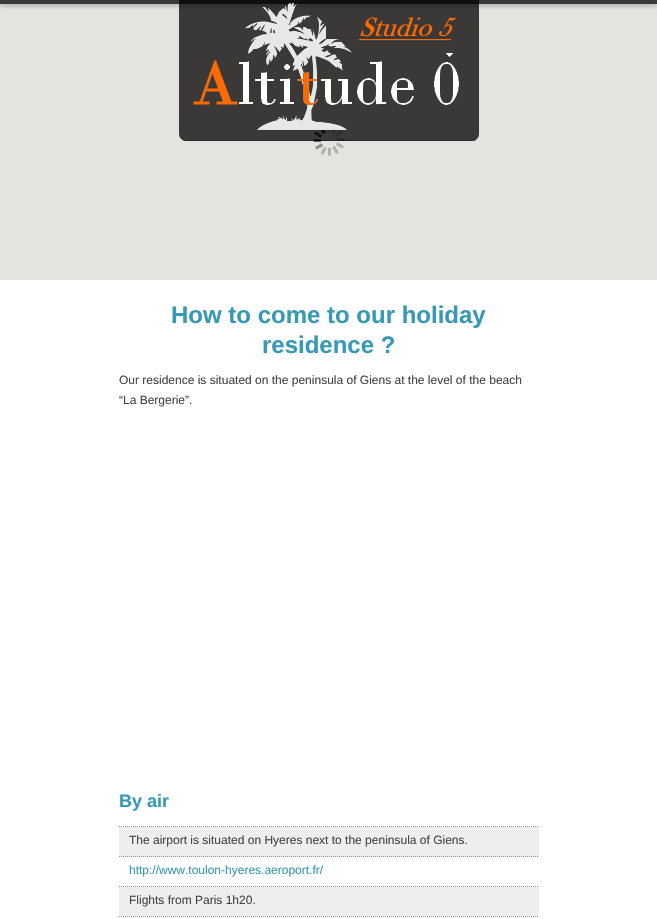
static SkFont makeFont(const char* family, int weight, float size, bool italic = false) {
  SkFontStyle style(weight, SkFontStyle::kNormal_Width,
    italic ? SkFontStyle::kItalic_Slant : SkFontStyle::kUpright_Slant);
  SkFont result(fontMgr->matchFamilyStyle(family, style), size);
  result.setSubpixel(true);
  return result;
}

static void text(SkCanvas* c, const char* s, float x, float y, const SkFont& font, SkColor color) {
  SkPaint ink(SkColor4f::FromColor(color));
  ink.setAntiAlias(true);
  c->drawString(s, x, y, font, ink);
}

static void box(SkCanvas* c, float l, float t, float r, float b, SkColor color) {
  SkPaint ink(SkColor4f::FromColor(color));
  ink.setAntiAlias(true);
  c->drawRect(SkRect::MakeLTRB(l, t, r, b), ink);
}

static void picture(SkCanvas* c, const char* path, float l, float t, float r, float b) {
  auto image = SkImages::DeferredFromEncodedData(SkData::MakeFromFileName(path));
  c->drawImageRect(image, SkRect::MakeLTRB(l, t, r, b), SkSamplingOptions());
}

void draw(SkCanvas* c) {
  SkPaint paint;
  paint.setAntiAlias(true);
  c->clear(0xffe5e3df);
  paint.setColor(0x40000000);
  paint.setMaskFilter(SkMaskFilter::MakeBlur(kNormal_SkBlurStyle, 2));
  c->drawRect(SkRect::MakeLTRB(0, 2, 657, 6), paint);
  paint.setMaskFilter(nullptr);
  box(c, 0, 0, 657, 4, 0xff393938);
  picture(c, "img_04.png", 313, 124, 345, 156);
  picture(c, "img_01.png", 179, 0, 479, 141);
  box(c, 183, 140, 476, 141, 0x54000000);
  picture(c, "img_02.png", 193, 3, 459, 130);
  picture(c, "img_03.png", 446, 53, 453, 57);
  box(c, 0, 280, 657, 919, 0xffffffff);
  SkFont face1 = makeFont("Liberation Sans", 700, 24);
  text(c, "How to come to our holiday", 171, 323, face1, 0xff3699b5);
  text(c, "residence ?", 262, 353, face1, 0xff3699b5);
  SkFont face2 = makeFont("Liberation Sans", 400, 12);
  text(c, "Our residence is situated on the peninsula of Giens at the level of the beach", 119, 384, face2, 0xff444444);
  text(c, "“La Bergerie”.", 119, 404, face2, 0xff444444);
  SkFont face3 = makeFont("Liberation Sans", 700, 18);
  text(c, "By air", 119, 807, face3, 0xff3699b5);
  box(c, 119, 826, 539, 857, 0xffeeeeee);
  paint.setStyle(SkPaint::kStroke_Style);
  paint.setStrokeWidth(1);
  paint.setColor(0xff999999);
  paint.setPathEffect(SkDashPathEffect::Make({{1, 1}}, 0));
  c->drawPath(SkPathBuilder().moveTo(119, 826.5f).lineTo(539, 826.5f).detach(), paint);
  paint.setPathEffect(nullptr);
  paint.setPathEffect(SkDashPathEffect::Make({{1, 1}}, 0));
  c->drawPath(SkPathBuilder().moveTo(119, 856.5f).lineTo(539, 856.5f).detach(), paint);
  paint.setPathEffect(nullptr);
  text(c, "The airport is situated on Hyeres next to the peninsula of Giens.", 129, 844, face2, 0xff444444);
  paint.setPathEffect(SkDashPathEffect::Make({{1, 1}}, 0));
  c->drawPath(SkPathBuilder().moveTo(119, 886.5f).lineTo(539, 886.5f).detach(), paint);
  paint.setPathEffect(nullptr);
  text(c, "http://www.toulon-hyeres.aeroport.fr/", 129, 874, face2, 0xff3699b5);
  box(c, 119, 887, 539, 917, 0xffeeeeee);
  paint.setPathEffect(SkDashPathEffect::Make({{1, 1}}, 0));
  c->drawPath(SkPathBuilder().moveTo(119, 916.5f).lineTo(539, 916.5f).detach(), paint);
  paint.setPathEffect(nullptr);
  text(c, "Flights from Paris 1h20.", 129, 904, face2, 0xff444444);
}
